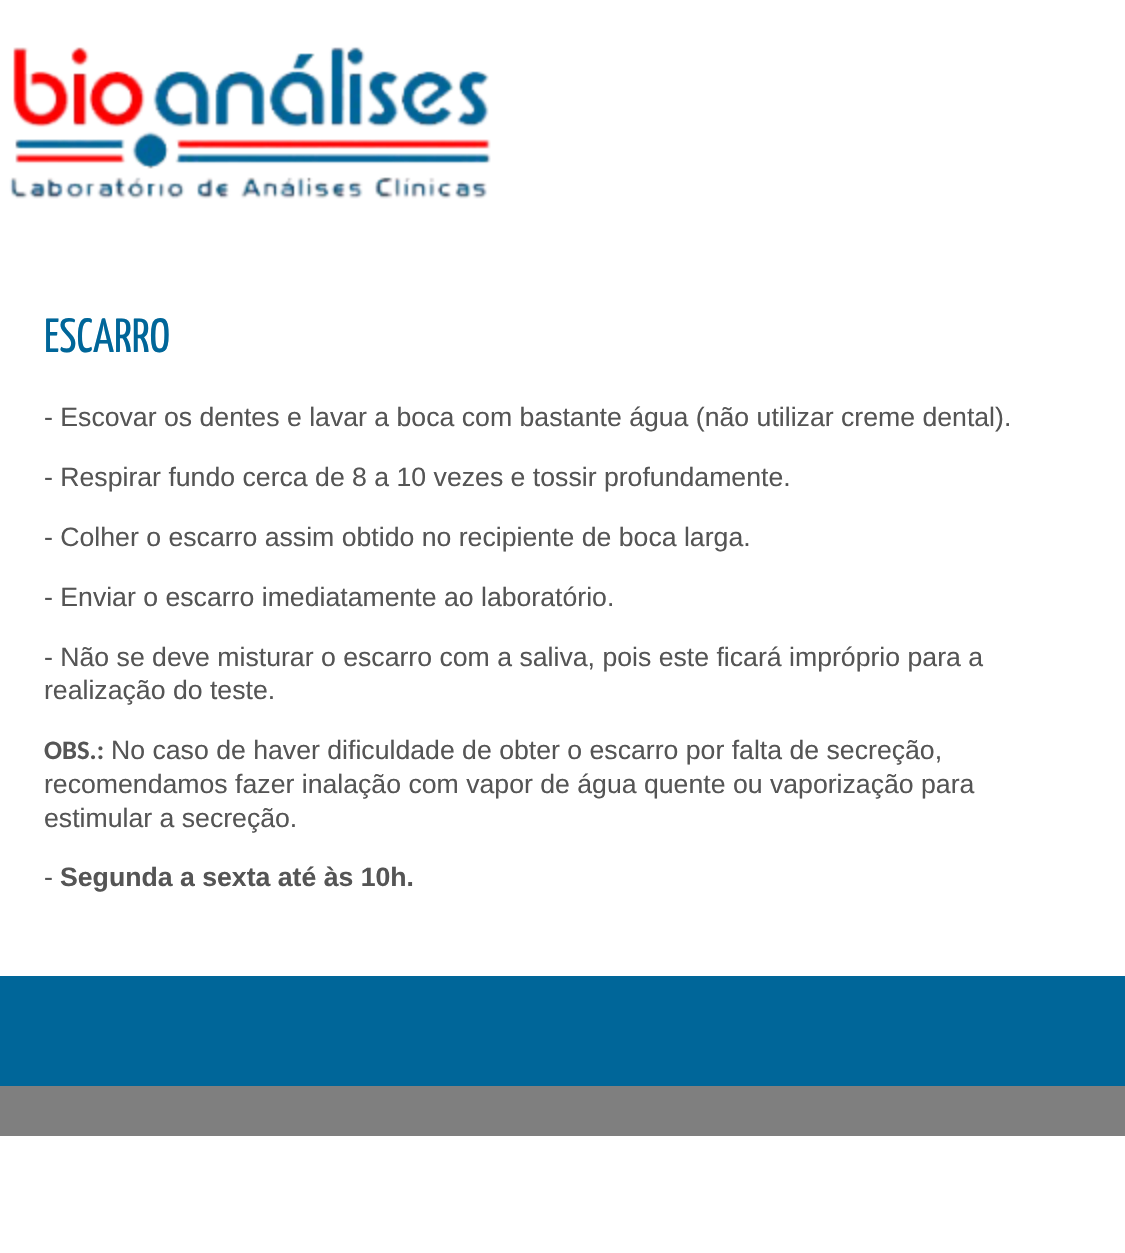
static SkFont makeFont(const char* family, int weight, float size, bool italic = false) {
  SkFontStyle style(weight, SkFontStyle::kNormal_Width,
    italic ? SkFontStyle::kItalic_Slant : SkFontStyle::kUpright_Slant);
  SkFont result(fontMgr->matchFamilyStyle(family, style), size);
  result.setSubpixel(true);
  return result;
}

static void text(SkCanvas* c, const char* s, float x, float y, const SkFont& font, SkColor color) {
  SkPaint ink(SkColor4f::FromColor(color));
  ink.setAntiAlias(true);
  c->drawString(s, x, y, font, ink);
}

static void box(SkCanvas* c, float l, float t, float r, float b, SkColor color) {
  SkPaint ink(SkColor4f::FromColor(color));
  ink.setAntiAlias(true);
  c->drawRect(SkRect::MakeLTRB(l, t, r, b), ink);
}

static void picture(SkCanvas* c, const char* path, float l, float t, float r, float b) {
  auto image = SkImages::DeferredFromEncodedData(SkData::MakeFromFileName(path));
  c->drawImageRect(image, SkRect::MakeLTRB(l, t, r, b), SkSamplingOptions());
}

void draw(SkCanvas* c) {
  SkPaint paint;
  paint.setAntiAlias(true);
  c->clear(0xffffffff);
  picture(c, "img_01.png", 9, 46, 491, 199);
  SkFont face1 = makeFont("Yanone Kaffeesatz", 400, 48);
  text(c, "ESCARRO", 44, 352, face1, 0xff006699);
  SkFont face2 = makeFont("Liberation Sans", 400, 26.65f);
  text(c, "- Escovar os dentes e lavar a boca com bastante água (não utilizar creme dental).", 44, 426, face2, 0xff555555);
  text(c, "- Respirar fundo cerca de 8 a 10 vezes e tossir profundamente.", 44, 486, face2, 0xff555555);
  text(c, "- Colher o escarro assim obtido no recipiente de boca larga.", 44, 546, face2, 0xff555555);
  text(c, "- Enviar o escarro imediatamente ao laboratório.", 44, 606, face2, 0xff555555);
  text(c, "- Não se deve misturar o escarro com a saliva, pois este ficará impróprio para a", 44, 666, face2, 0xff555555);
  text(c, "realização do teste.", 44, 699, face2, 0xff555555);
  SkFont face3 = makeFont("Carlito", 700, 26.65f);
  text(c, "OBS.:", 44, 759, face3, 0xff555555);
  text(c, "No caso de haver dificuldade de obter o escarro por falta de secreção,", 111, 759, face2, 0xff555555);
  text(c, "recomendamos fazer inalação com vapor de água quente ou vaporização para", 44, 793, face2, 0xff555555);
  text(c, "estimular a secreção.", 44, 827, face2, 0xff555555);
  text(c, "-", 44, 886, face2, 0xff555555);
  SkFont face4 = makeFont("Liberation Sans", 700, 26.65f);
  text(c, "Segunda a sexta até às 10h.", 60, 886, face4, 0xff555555);
  box(c, 0, 976, 1125, 1086, 0xff006699);
  box(c, 0, 1086, 1125, 1136, 0xff7f7f7f);
}
